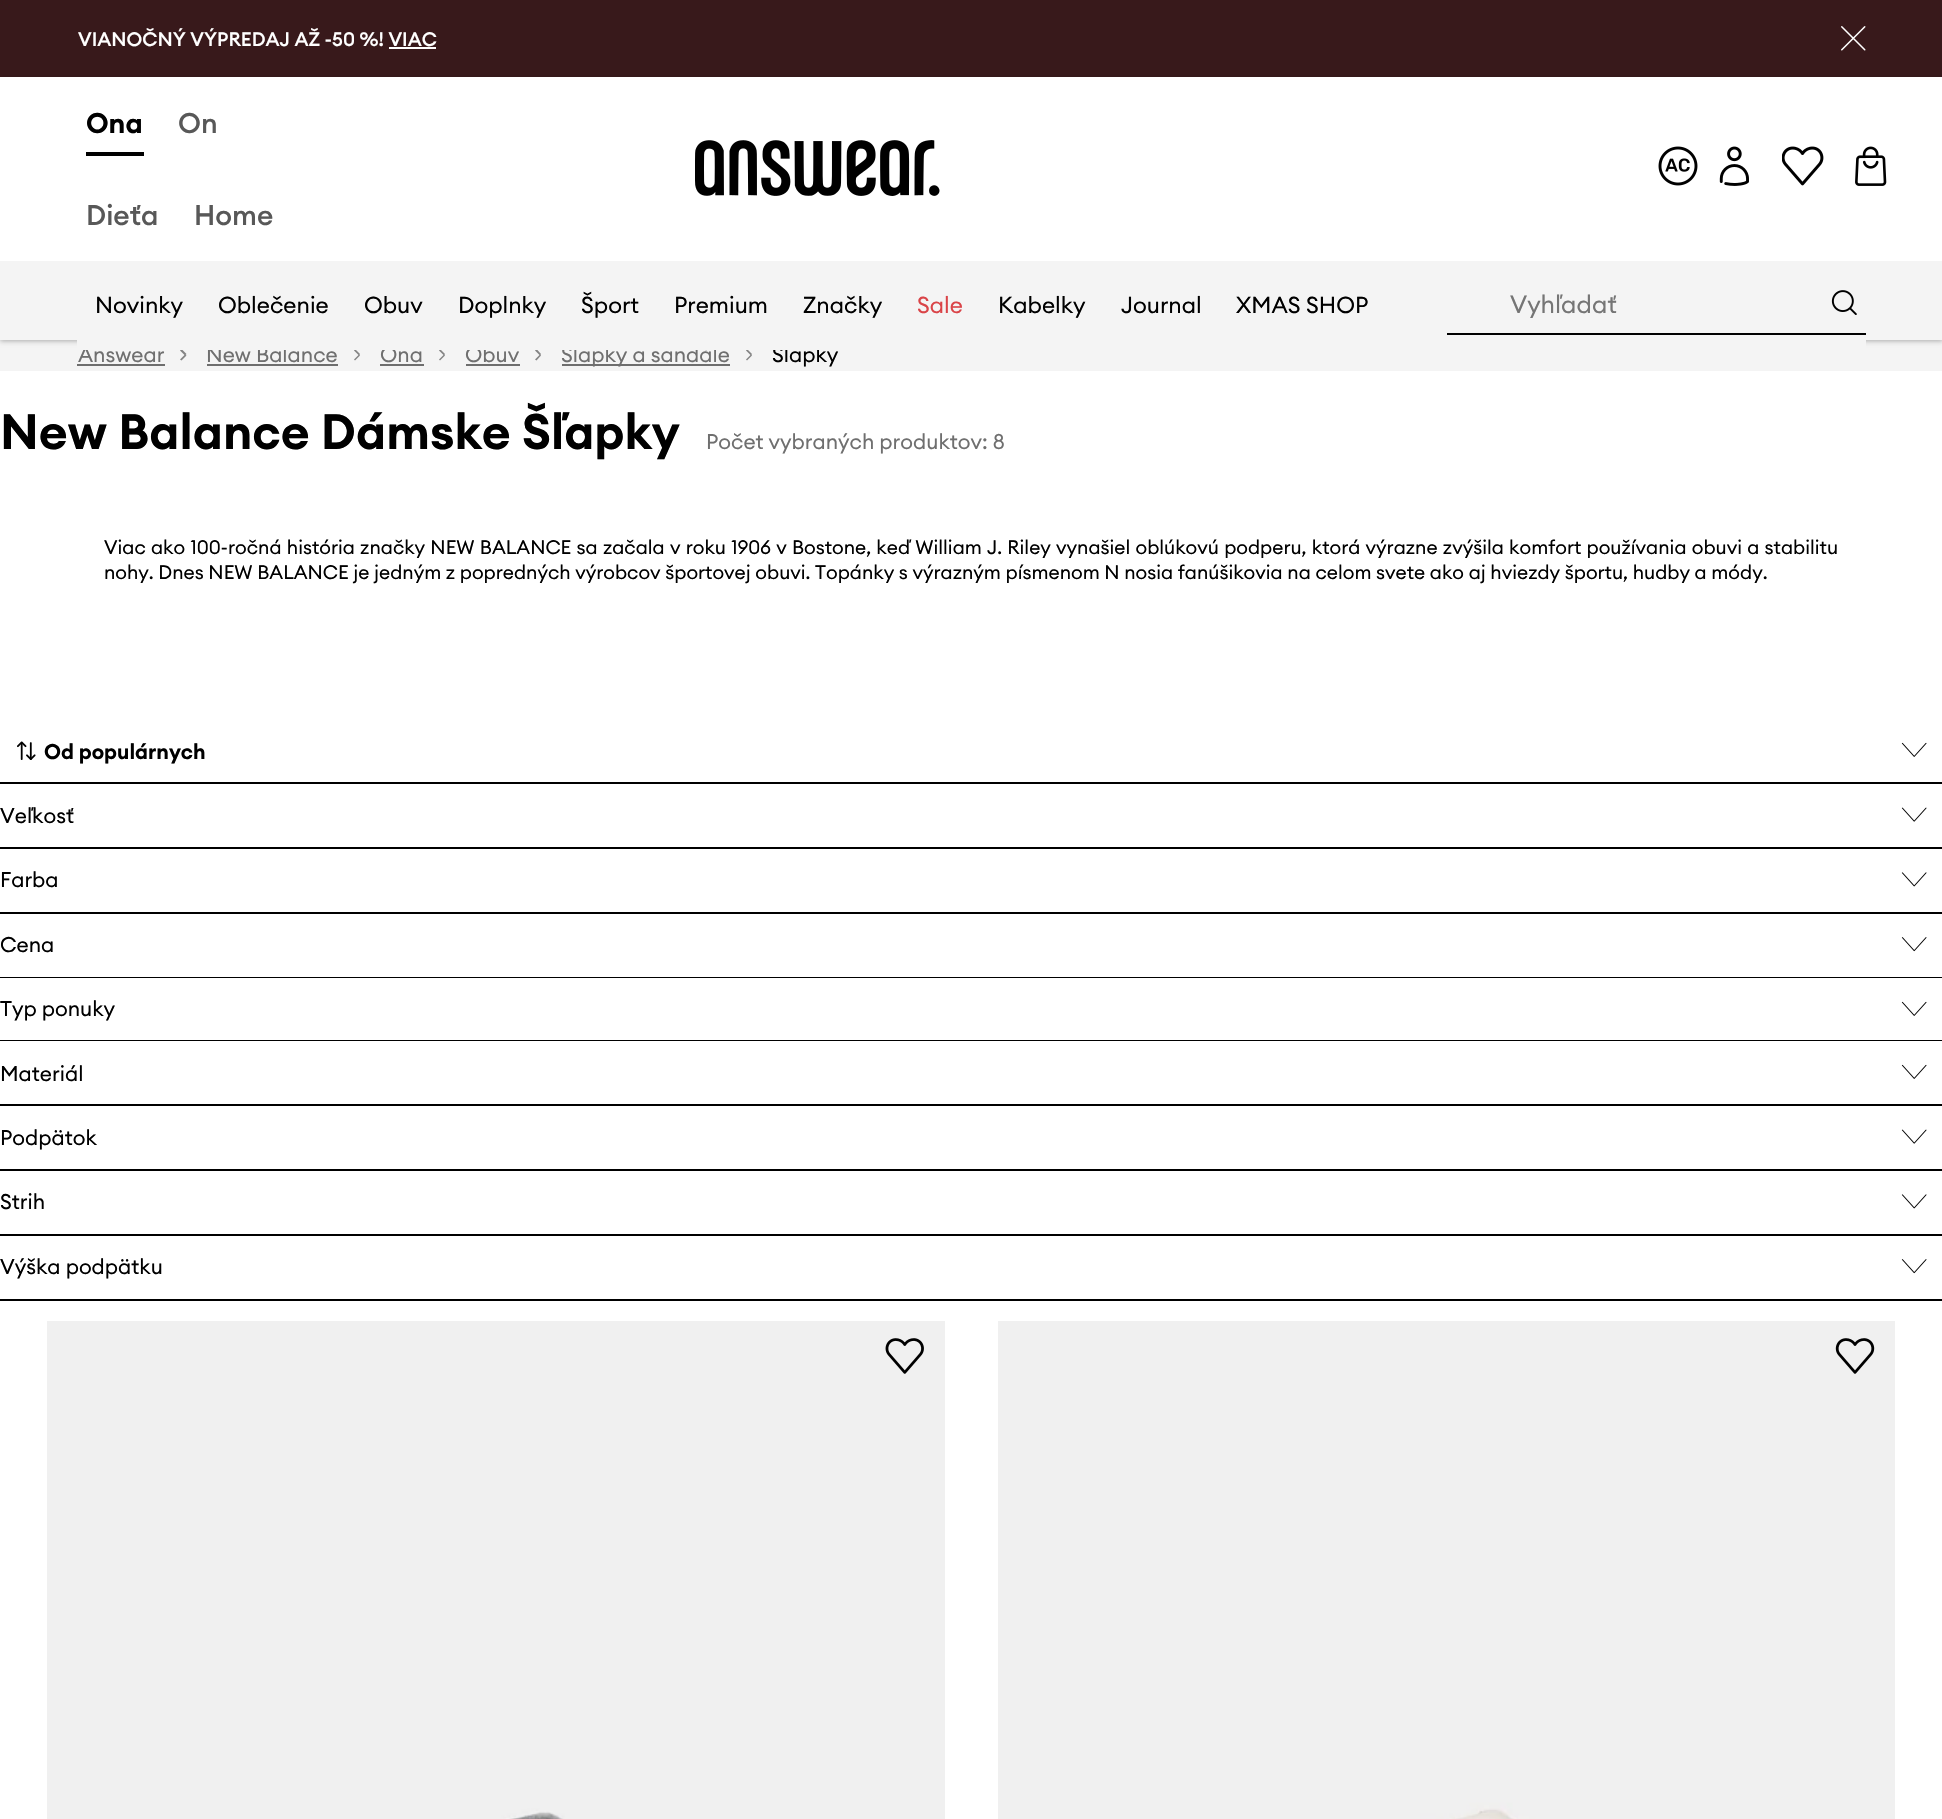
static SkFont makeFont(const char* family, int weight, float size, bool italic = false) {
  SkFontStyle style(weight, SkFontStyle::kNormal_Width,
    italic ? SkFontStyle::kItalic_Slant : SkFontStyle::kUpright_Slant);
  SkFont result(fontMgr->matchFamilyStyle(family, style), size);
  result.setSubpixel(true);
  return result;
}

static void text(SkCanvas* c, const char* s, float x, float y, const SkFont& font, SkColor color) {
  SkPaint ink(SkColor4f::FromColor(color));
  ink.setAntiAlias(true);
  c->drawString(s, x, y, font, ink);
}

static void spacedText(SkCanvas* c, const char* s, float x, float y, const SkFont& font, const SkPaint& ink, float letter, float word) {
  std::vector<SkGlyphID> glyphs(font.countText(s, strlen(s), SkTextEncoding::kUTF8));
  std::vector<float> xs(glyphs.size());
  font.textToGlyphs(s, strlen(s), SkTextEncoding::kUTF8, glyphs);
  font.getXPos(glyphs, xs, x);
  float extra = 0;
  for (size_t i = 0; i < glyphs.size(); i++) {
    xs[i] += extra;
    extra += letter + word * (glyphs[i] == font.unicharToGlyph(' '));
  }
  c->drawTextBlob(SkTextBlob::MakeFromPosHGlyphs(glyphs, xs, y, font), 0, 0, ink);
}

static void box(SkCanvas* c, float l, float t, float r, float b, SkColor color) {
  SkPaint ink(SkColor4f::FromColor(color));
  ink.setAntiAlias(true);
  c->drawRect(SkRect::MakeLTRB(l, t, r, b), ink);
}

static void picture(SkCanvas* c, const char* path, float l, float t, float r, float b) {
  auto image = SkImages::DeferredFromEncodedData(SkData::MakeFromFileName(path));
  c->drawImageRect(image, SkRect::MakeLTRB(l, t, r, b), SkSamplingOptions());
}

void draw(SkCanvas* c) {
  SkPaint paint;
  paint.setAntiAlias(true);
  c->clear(0xffffffff);
  box(c, 0, 0, 1942, 77, 0xff38191b);
  SkFont face1 = makeFont("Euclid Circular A", 500, 19.25f);
  text(c, "VIANOČNÝ VÝPREDAJ AŽ -50 %! VIAC", 78, 46, face1, 0xffffffff);
  box(c, 389, 47, 436, 49, 0xffffffff);
  picture(c, "img_01.png", 1841, 26, 1866, 51);
  box(c, 0, 340, 1942, 371, 0xfff4f4f4);
  paint.setColor(0xff848484);
  c->drawPath(SkPathBuilder().moveTo(180, 359.5f).lineTo(185, 354.5f).lineTo(186.5f, 355.5f).lineTo(181.5f, 360.5f).close().detach(), paint);
  c->drawPath(SkPathBuilder().moveTo(181.5f, 349).lineTo(186.5f, 354).lineTo(185, 355.5f).lineTo(180, 350.5f).close().detach(), paint);
  c->drawPath(SkPathBuilder().moveTo(354, 359.5f).lineTo(359, 354.5f).lineTo(360, 355.5f).lineTo(355, 360.5f).close().detach(), paint);
  c->drawPath(SkPathBuilder().moveTo(355, 349).lineTo(360, 354).lineTo(359, 355.5f).lineTo(354, 350.5f).close().detach(), paint);
  c->drawPath(SkPathBuilder().moveTo(439, 359.5f).lineTo(444, 354.5f).lineTo(445, 355.5f).lineTo(440, 360.5f).close().detach(), paint);
  c->drawPath(SkPathBuilder().moveTo(440, 349).lineTo(445, 354).lineTo(444, 355.5f).lineTo(439, 350.5f).close().detach(), paint);
  c->drawPath(SkPathBuilder().moveTo(535, 359.5f).lineTo(540, 354.5f).lineTo(541, 355.5f).lineTo(536.5f, 360.5f).close().detach(), paint);
  c->drawPath(SkPathBuilder().moveTo(536.5f, 349).lineTo(541, 354).lineTo(540, 355.5f).lineTo(535, 350.5f).close().detach(), paint);
  c->drawPath(SkPathBuilder().moveTo(746, 359.5f).lineTo(751, 354.5f).lineTo(752, 355.5f).lineTo(747, 360.5f).close().detach(), paint);
  c->drawPath(SkPathBuilder().moveTo(747, 349).lineTo(752, 354).lineTo(751, 355.5f).lineTo(746, 350.5f).close().detach(), paint);
  paint.setColor(0x4d000000);
  paint.setMaskFilter(SkMaskFilter::MakeBlur(kNormal_SkBlurStyle, 2.5f));
  c->drawRect(SkRect::MakeLTRB(0, 79, 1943, 341), paint);
  paint.setMaskFilter(nullptr);
  box(c, 0, 77, 1942, 261, 0xffffffff);
  SkFont face2 = makeFont("Euclid Circular A", 600, 28);
  text(c, "Ona", 86, 133, face2, 0xff000000);
  box(c, 86, 152, 144, 156, 0xff000000);
  SkFont face3 = makeFont("Euclid Circular A", 500, 28);
  text(c, "On", 178, 133, face3, 0xff585858);
  text(c, "Dieťa", 86, 225, face3, 0xff585858);
  text(c, "Home", 194, 225, face3, 0xff585858);
  picture(c, "img_02.png", 695, 140, 940, 196);
  picture(c, "img_03.png", 1658, 146, 1698, 186);
  picture(c, "img_04.png", 1719, 146, 1749, 186);
  picture(c, "img_05.png", 1782, 146, 1824, 186);
  picture(c, "img_06.png", 1855, 146, 1887, 186);
  box(c, 0, 261, 1942, 340, 0xfff4f4f4);
  SkFont face4 = makeFont("Euclid Circular A", 400, 21);
  text(c, "Answear", 78, 362, face4, 0xff6f6f6f);
  text(c, "New Balance", 206, 362, face4, 0xff6f6f6f);
  text(c, "Ona", 380, 362, face4, 0xff6f6f6f);
  text(c, "Obuv", 465, 362, face4, 0xff6f6f6f);
  box(c, 562, 364, 730, 366, 0xff6e6e6e);
  text(c, "Šľapky a sandále", 561, 362, face4, 0xff6f6f6f);
  text(c, "Šľapky", 772, 362, face4, 0xff000000);
  box(c, 77, 340, 1866, 350, 0xfff4f4f4);
  SkFont face5 = makeFont("Euclid Circular A", 400, 22.75f);
  text(c, "Novinky", 95, 313, face5, 0xff000000);
  text(c, "Oblečenie", 218, 313, face5, 0xff000000);
  text(c, "Obuv", 364, 313, face5, 0xff000000);
  text(c, "Doplnky", 458, 313, face5, 0xff000000);
  text(c, "Šport", 581, 313, face5, 0xff000000);
  text(c, "Premium", 674, 313, face5, 0xff000000);
  text(c, "Značky", 803, 313, face5, 0xff000000);
  text(c, "Sale", 917, 313, face5, 0xffda4448);
  text(c, "Kabelky", 998, 313, face5, 0xff000000);
  text(c, "Journal", 1121, 313, face5, 0xff000000);
  text(c, "XMAS SHOP", 1236, 313, face5, 0xff000000);
  box(c, 1447, 333, 1866, 335, 0xff000000);
  SkFont face6 = makeFont("Euclid Circular A", 400, 24.5f);
  text(c, "Vyhľadať", 1510, 313, face6, 0xff757575);
  picture(c, "img_07.png", 1831, 290, 1857, 315);
  box(c, 77, 364, 165, 366, 0xff6e6e6e);
  box(c, 207, 364, 338, 366, 0xff6e6e6e);
  box(c, 380, 364, 424, 366, 0xff6e6e6e);
  box(c, 466, 364, 520, 366, 0xff6e6e6e);
  SkFont face7 = makeFont("Euclid Circular A", 600, 49);
  text(c, "New Balance Dámske Šľapky", 0, 449, face7, 0xff000000);
  text(c, "Počet vybraných produktov: 8", 706, 449, face4, 0xff6f6f6f);
  SkFont face8 = makeFont("Euclid Circular A", 400, 19.25f);
  paint.setColor(0xff000000);
  spacedText(c, "Viac ako 100-ročná história značky NEW BALANCE sa začala v roku 1906 v Bostone, keď William J. Riley vynašiel oblúkovú podperu, ktorá výrazne zvýšila komfort používania obuvi a stabilitu", 104, 554, face8, paint, 0, 0.6f);
  text(c, "nohy. Dnes NEW BALANCE je jedným z popredných výrobcov športovej obuvi. Topánky s výrazným písmenom N nosia fanúšikovia na celom svete ako aj hviezdy športu, hudby a módy.", 104, 579, face8, 0xff000000);
  box(c, 0, 782, 1942, 784, 0xff000000);
  picture(c, "img_08.png", 17, 741, 36, 760);
  SkFont face9 = makeFont("Euclid Circular A", 600, 21);
  text(c, "Od populárnych", 44, 759, face9, 0xff000000);
  picture(c, "img_09.png", 1901, 742, 1927, 757);
  box(c, 0, 847, 1942, 849, 0xff000000);
  text(c, "Veľkosť", 0, 823, face4, 0xff000000);
  picture(c, "img_10.png", 1901, 807, 1927, 822);
  box(c, 0, 912, 1942, 914, 0xff000000);
  text(c, "Farba", 0, 887, face4, 0xff000000);
  picture(c, "img_11.png", 1901, 872, 1927, 887);
  box(c, 0, 977, 1942, 978, 0xff000000);
  text(c, "Cena", 0, 952, face4, 0xff000000);
  picture(c, "img_12.png", 1901, 937, 1927, 952);
  box(c, 0, 1040, 1942, 1041, 0xff000000);
  text(c, "Typ ponuky", 0, 1016, face4, 0xff000000);
  picture(c, "img_09.png", 1901, 1001, 1927, 1016);
  box(c, 0, 1104, 1942, 1106, 0xff000000);
  text(c, "Materiál", 0, 1081, face4, 0xff000000);
  picture(c, "img_09.png", 1901, 1064, 1927, 1079);
  box(c, 0, 1169, 1942, 1171, 0xff000000);
  text(c, "Podpätok", 0, 1145, face4, 0xff000000);
  picture(c, "img_10.png", 1901, 1129, 1927, 1144);
  box(c, 0, 1234, 1942, 1236, 0xff000000);
  text(c, "Strih", 0, 1209, face4, 0xff000000);
  picture(c, "img_11.png", 1901, 1194, 1927, 1209);
  box(c, 0, 1299, 1942, 1301, 0xff000000);
  text(c, "Výška podpätku", 0, 1274, face4, 0xff000000);
  picture(c, "img_12.png", 1901, 1259, 1927, 1274);
  picture(c, "img_13.png", 47, 1321, 945, 1819);
  picture(c, "img_14.png", 885, 1338, 924, 1374);
  picture(c, "img_15.png", 998, 1321, 1895, 1819);
  picture(c, "img_16.png", 1835, 1338, 1875, 1374);
}
